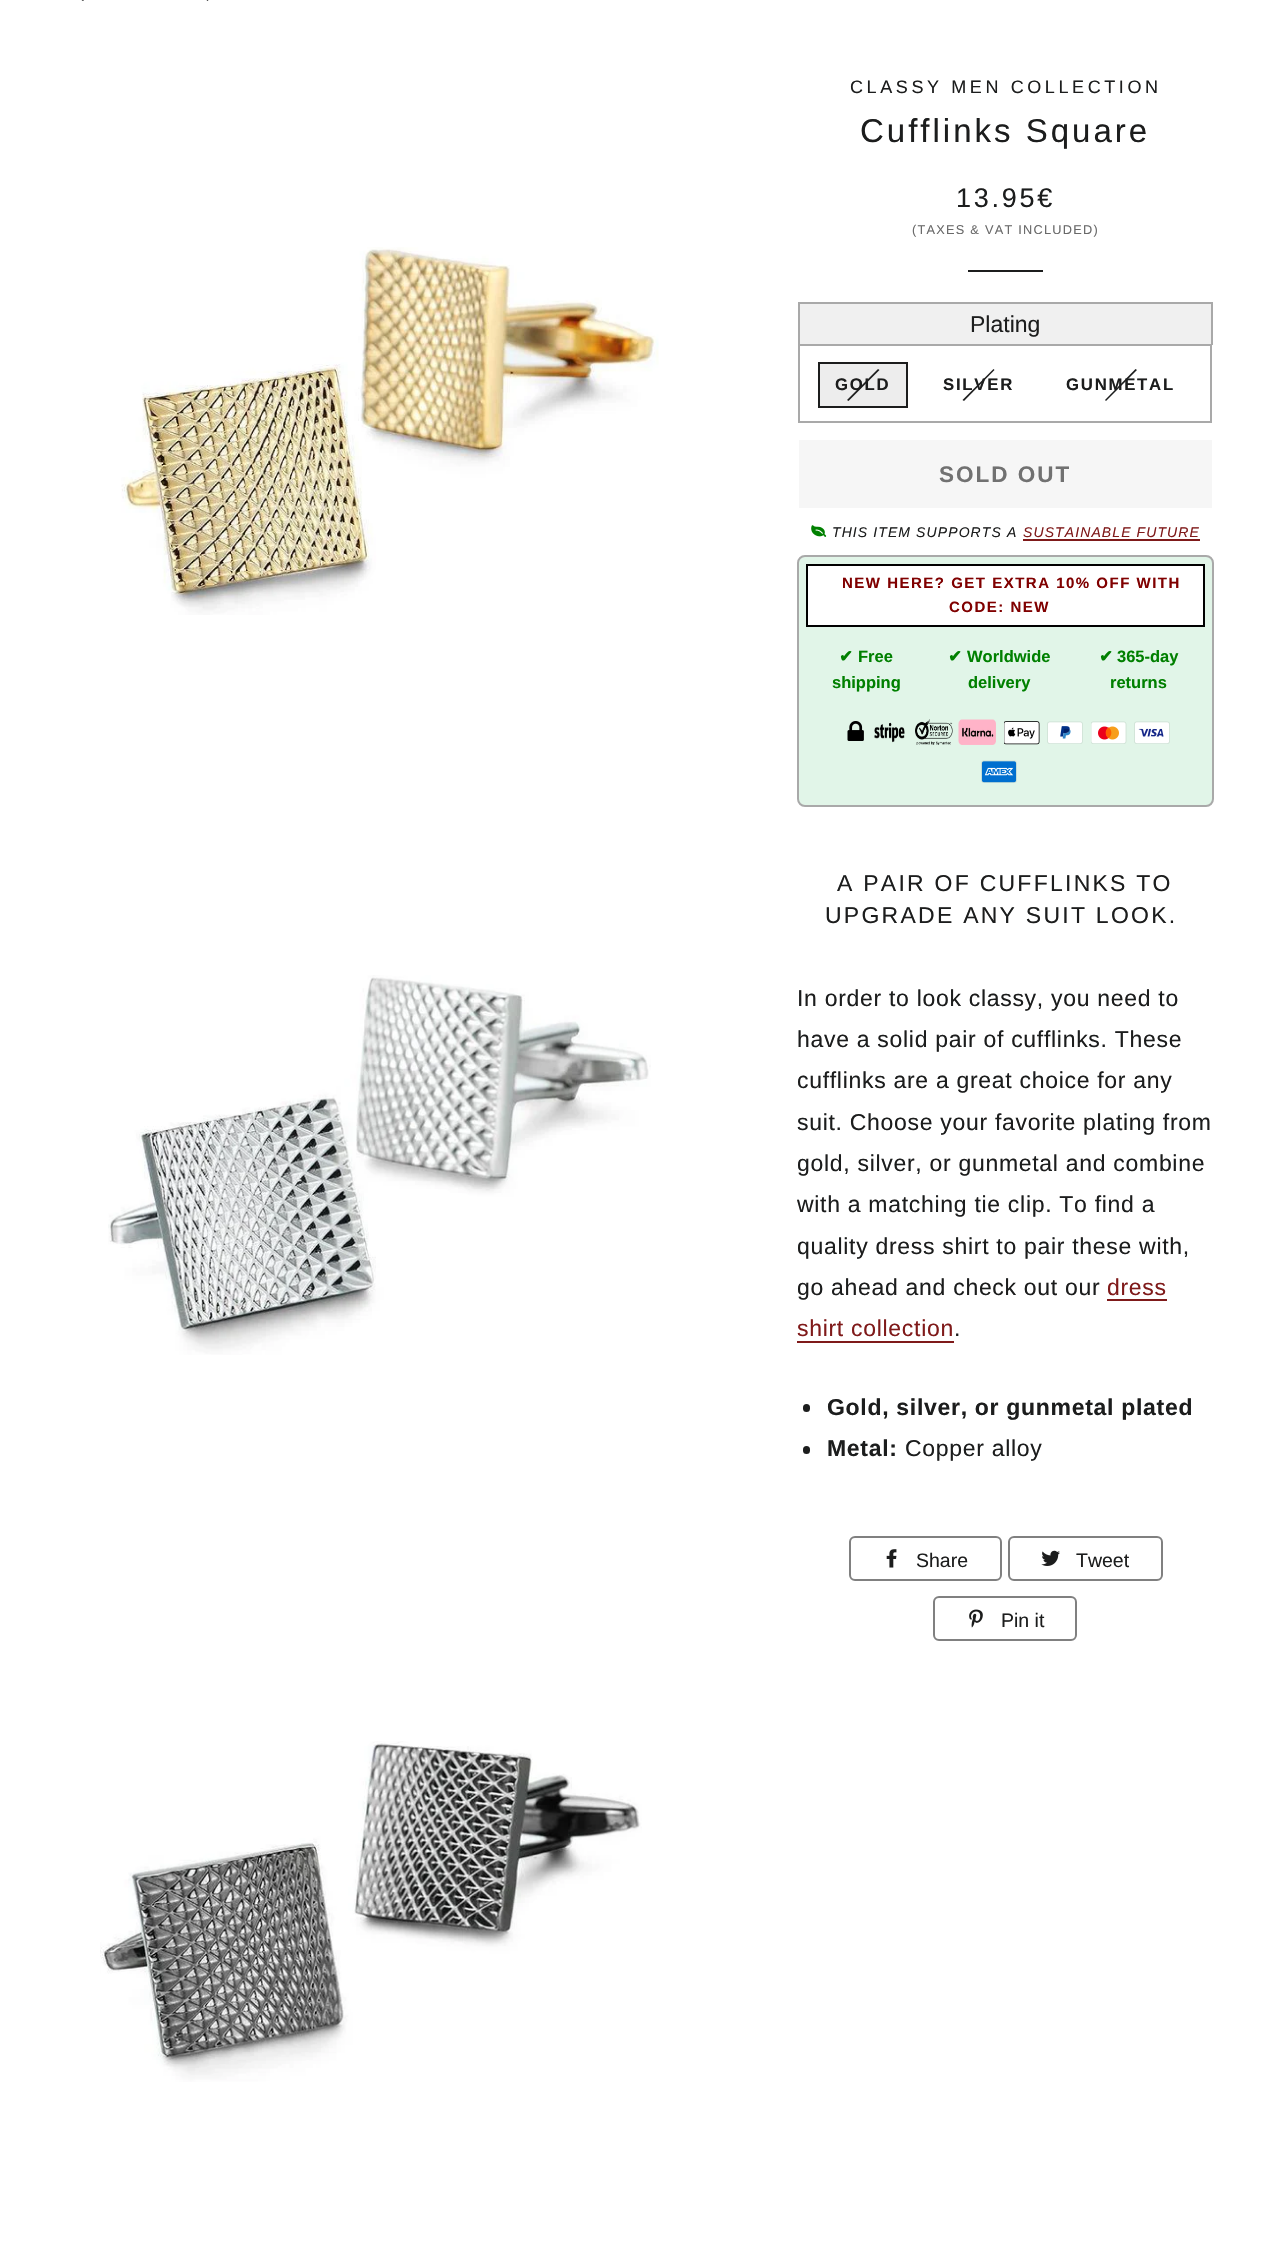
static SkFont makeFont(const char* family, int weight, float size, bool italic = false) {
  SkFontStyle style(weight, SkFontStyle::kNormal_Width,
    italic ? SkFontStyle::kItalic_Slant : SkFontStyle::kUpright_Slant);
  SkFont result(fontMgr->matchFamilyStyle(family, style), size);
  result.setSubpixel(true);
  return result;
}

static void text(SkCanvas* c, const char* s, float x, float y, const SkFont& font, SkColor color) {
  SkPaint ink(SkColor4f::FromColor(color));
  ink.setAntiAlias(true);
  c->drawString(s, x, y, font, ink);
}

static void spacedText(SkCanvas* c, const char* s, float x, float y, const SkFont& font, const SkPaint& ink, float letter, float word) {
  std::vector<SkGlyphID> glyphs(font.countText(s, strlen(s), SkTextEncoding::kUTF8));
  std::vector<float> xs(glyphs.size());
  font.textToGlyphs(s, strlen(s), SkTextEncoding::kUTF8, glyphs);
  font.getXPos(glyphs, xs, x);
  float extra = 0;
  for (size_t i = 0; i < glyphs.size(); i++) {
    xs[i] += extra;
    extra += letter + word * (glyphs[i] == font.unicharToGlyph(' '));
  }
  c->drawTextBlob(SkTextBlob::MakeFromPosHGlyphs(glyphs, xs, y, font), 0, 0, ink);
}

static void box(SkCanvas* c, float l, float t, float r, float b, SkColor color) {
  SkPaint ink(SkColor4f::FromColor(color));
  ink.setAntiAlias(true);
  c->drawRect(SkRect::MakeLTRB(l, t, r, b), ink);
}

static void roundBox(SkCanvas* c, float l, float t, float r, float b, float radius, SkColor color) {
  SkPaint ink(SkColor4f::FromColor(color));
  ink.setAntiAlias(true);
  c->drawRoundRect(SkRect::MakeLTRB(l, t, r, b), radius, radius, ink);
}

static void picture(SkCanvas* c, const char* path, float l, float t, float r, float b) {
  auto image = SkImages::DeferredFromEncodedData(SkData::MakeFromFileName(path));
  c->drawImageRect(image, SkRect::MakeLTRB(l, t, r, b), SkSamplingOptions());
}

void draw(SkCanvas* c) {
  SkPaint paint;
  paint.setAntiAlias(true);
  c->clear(0xffffffff);
  paint.setColor(0xff1c1d1d);
  c->drawPath(SkPathBuilder().moveTo(86, -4.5f).lineTo(87.5f, -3.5f).lineTo(83, 1).lineTo(81.5f, 0).close().detach(), paint);
  c->drawPath(SkPathBuilder().moveTo(211, -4.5f).lineTo(212, -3.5f).lineTo(207.5f, 1).lineTo(206.5f, 0).close().detach(), paint);
  picture(c, "img_01.png", 121, 247, 659, 615);
  picture(c, "img_02.png", 108, 975, 651, 1355);
  picture(c, "img_03.png", 100, 1741, 642, 2082);
  SkFont face1 = makeFont("Liberation Sans", 400, 18);
  spacedText(c, "CLASSY MEN COLLECTION", 850, 93, face1, paint, 3.6f, 0);
  SkFont face2 = makeFont("Liberation Sans", 400, 33);
  spacedText(c, "Cufflinks Square", 860, 142, face2, paint, 3, 0);
  SkFont face3 = makeFont("Liberation Sans", 400, 27);
  spacedText(c, "13.95€", 956, 207, face3, paint, 2.75f, 0);
  SkFont face4 = makeFont("Liberation Sans", 400, 12.75f);
  paint.setColor(0xff696969);
  spacedText(c, "(TAXES & VAT INCLUDED)", 912, 234, face4, paint, 1.25f, 0);
  box(c, 968, 270, 1043, 272, 0xff1c1d1d);
  box(c, 800, 304, 1211, 344, 0xfff0f0f0);
  box(c, 798, 302, 1212, 304, 0xffa9a9a9);
  box(c, 1211, 302, 1213, 345, 0xffa9a9a9);
  box(c, 798, 302, 800, 345, 0xffa9a9a9);
  SkFont face5 = makeFont("Liberation Sans", 400, 23);
  text(c, "Plating", 970, 332, face5, 0xff1c1d1d);
  paint.setStyle(SkPaint::kStroke_Style);
  paint.setStrokeWidth(2);
  paint.setColor(0xffa9a9a9);
  c->drawRect(SkRect::MakeLTRB(799, 345, 1211, 422), paint);
  paint.setStyle(SkPaint::kFill_Style);
  paint.setColor(0xffededed);
  c->drawRect(SkRect::MakeLTRB(819, 363, 907, 407), paint);
  paint.setStyle(SkPaint::kStroke_Style);
  paint.setColor(0xff1c1d1d);
  c->drawRect(SkRect::MakeLTRB(819, 363, 907, 407), paint);
  paint.setStyle(SkPaint::kFill_Style);
  c->drawPath(SkPathBuilder().moveTo(878, 369).lineTo(879.5f, 370).lineTo(848.5f, 401).lineTo(847, 400).close().detach(), paint);
  SkFont face6 = makeFont("Liberation Sans", 700, 16.75f);
  spacedText(c, "GOLD", 835, 390, face6, paint, 1.75f, 0);
  c->drawPath(SkPathBuilder().moveTo(993.5f, 369).lineTo(994.5f, 370).lineTo(964, 401).lineTo(962.5f, 400).close().detach(), paint);
  spacedText(c, "SILVER", 943, 390, face6, paint, 1.75f, 0);
  c->drawPath(SkPathBuilder().moveTo(1135.5f, 369).lineTo(1137, 370).lineTo(1106, 401).lineTo(1105, 400).close().detach(), paint);
  spacedText(c, "GUNMETAL", 1066, 390, face6, paint, 1.75f, 0);
  box(c, 799, 440, 1212, 508, 0xfff6f6f6);
  SkFont face7 = makeFont("Liberation Sans", 700, 22.5f);
  paint.setColor(0xff717171);
  spacedText(c, "SOLD OUT", 939, 482, face7, paint, 2, 0);
  picture(c, "img_04.png", 811, 525, 827, 537);
  SkFont face8 = makeFont("Liberation Sans", 400, 14, true);
  paint.setColor(0xff1c1d1d);
  spacedText(c, "THIS ITEM SUPPORTS A", 832, 537, face8, paint, 1.1f, 0);
  paint.setColor(0xff7f1a1a);
  spacedText(c, "SUSTAINABLE FUTURE", 1023, 537, face8, paint, 1.1f, 0);
  box(c, 1023, 539, 1200, 541, 0xff7f1a1a);
  paint.setColor(0xffe1f5e8);
  c->drawRoundRect(SkRect::MakeLTRB(798, 556, 1213, 806), 7, 7, paint);
  paint.setStyle(SkPaint::kStroke_Style);
  paint.setColor(0xffa9a9a9);
  c->drawRoundRect(SkRect::MakeLTRB(798, 556, 1213, 806), 7, 7, paint);
  paint.setStyle(SkPaint::kFill_Style);
  paint.setColor(0xffffffff);
  c->drawRect(SkRect::MakeLTRB(807, 565, 1204, 626), paint);
  paint.setStyle(SkPaint::kStroke_Style);
  paint.setColor(0xff000000);
  c->drawRect(SkRect::MakeLTRB(807, 565, 1204, 626), paint);
  SkFont face9 = makeFont("Liberation Sans", 700, 15);
  paint.setStyle(SkPaint::kFill_Style);
  paint.setColor(0xff800000);
  spacedText(c, "NEW HERE? GET EXTRA 10% OFF WITH", 842, 588, face9, paint, 1.5f, 0);
  spacedText(c, "CODE: NEW", 949, 612, face9, paint, 1.5f, 0);
  SkFont face10 = makeFont("DejaVu Sans", 700, 16.5f);
  text(c, "✔", 839, 662, face10, 0xff008000);
  SkFont face11 = makeFont("Liberation Sans", 700, 16.5f);
  text(c, "Free", 858, 662, face11, 0xff008000);
  text(c, "shipping", 832, 688, face11, 0xff008000);
  text(c, "✔", 948, 662, face10, 0xff008000);
  text(c, "Worldwide", 967, 662, face11, 0xff008000);
  text(c, "delivery", 968, 688, face11, 0xff008000);
  text(c, "✔", 1099, 662, face10, 0xff008000);
  text(c, "365-day", 1117, 662, face11, 0xff008000);
  text(c, "returns", 1110, 688, face11, 0xff008000);
  picture(c, "img_05.png", 847, 721, 864, 741);
  picture(c, "img_06.png", 874, 722, 905, 743);
  picture(c, "img_07.png", 915, 719, 953, 745);
  picture(c, "img_08.png", 958, 719, 996, 745);
  picture(c, "img_09.png", 1004, 721, 1040, 745);
  picture(c, "img_10.png", 1047, 721, 1083, 744);
  picture(c, "img_11.png", 1091, 721, 1127, 744);
  picture(c, "img_12.png", 1134, 721, 1170, 744);
  picture(c, "img_13.png", 981, 760, 1017, 783);
  paint.setColor(0xff1c1d1d);
  spacedText(c, "A PAIR OF CUFFLINKS TO", 837, 891, face5, paint, 2.25f, 0);
  spacedText(c, "UPGRADE ANY SUIT LOOK.", 825, 923, face5, paint, 2.25f, 0);
  spacedText(c, "In order to look classy, you need to", 797, 1006, face5, paint, 0.7f, 0);
  spacedText(c, "have a solid pair of cufflinks. These", 797, 1047, face5, paint, 0.7f, 0);
  spacedText(c, "cufflinks are a great choice for any", 797, 1088, face5, paint, 0.7f, 0);
  spacedText(c, "suit. Choose your favorite plating from", 797, 1130, face5, paint, 0.7f, 0);
  spacedText(c, "gold, silver, or gunmetal and combine", 797, 1171, face5, paint, 0.7f, 0);
  spacedText(c, "with a matching tie clip. To find a", 797, 1212, face5, paint, 0.7f, 0);
  spacedText(c, "quality dress shirt to pair these with,", 797, 1254, face5, paint, 0.7f, 0);
  spacedText(c, "go ahead and check out our", 797, 1295, face5, paint, 0.7f, 0);
  paint.setColor(0xff7f1a1a);
  spacedText(c, "dress", 1107, 1295, face5, paint, 0.7f, 0);
  box(c, 1107, 1299, 1167, 1301, 0xff7f1a1a);
  spacedText(c, "shirt collection", 797, 1336, face5, paint, 0.7f, 0);
  box(c, 797, 1341, 954, 1343, 0xff7f1a1a);
  paint.setColor(0xff1c1d1d);
  spacedText(c, ".", 954, 1336, face5, paint, 0.7f, 0);
  roundBox(c, 803, 1404, 810, 1412, 3.5f, 0xff1c1d1d);
  SkFont face12 = makeFont("Liberation Sans", 700, 23);
  spacedText(c, "Gold, silver, or gunmetal plated", 827, 1415, face12, paint, 0.7f, 0);
  roundBox(c, 803, 1446, 810, 1454, 3.5f, 0xff1c1d1d);
  spacedText(c, "Metal:", 827, 1456, face12, paint, 0.7f, 0);
  spacedText(c, "Copper alloy", 905, 1456, face5, paint, 0.7f, 0);
  paint.setStyle(SkPaint::kStroke_Style);
  paint.setColor(0xff808080);
  c->drawRoundRect(SkRect::MakeLTRB(850, 1537, 1001, 1580), 5, 5, paint);
  picture(c, "img_14.png", 886, 1549, 897, 1568);
  SkFont face13 = makeFont("Liberation Sans", 400, 19.5f);
  text(c, "Share", 916, 1567, face13, 0xff1c1d1d);
  c->drawRoundRect(SkRect::MakeLTRB(1009, 1537, 1162, 1580), 5, 5, paint);
  picture(c, "img_15.png", 1041, 1550, 1060, 1566);
  text(c, "Tweet", 1076, 1567, face13, 0xff1c1d1d);
  c->drawRoundRect(SkRect::MakeLTRB(934, 1597, 1076, 1640), 5, 5, paint);
  picture(c, "img_16.png", 969, 1609, 983, 1628);
  text(c, "Pin it", 1001, 1627, face13, 0xff1c1d1d);
}
